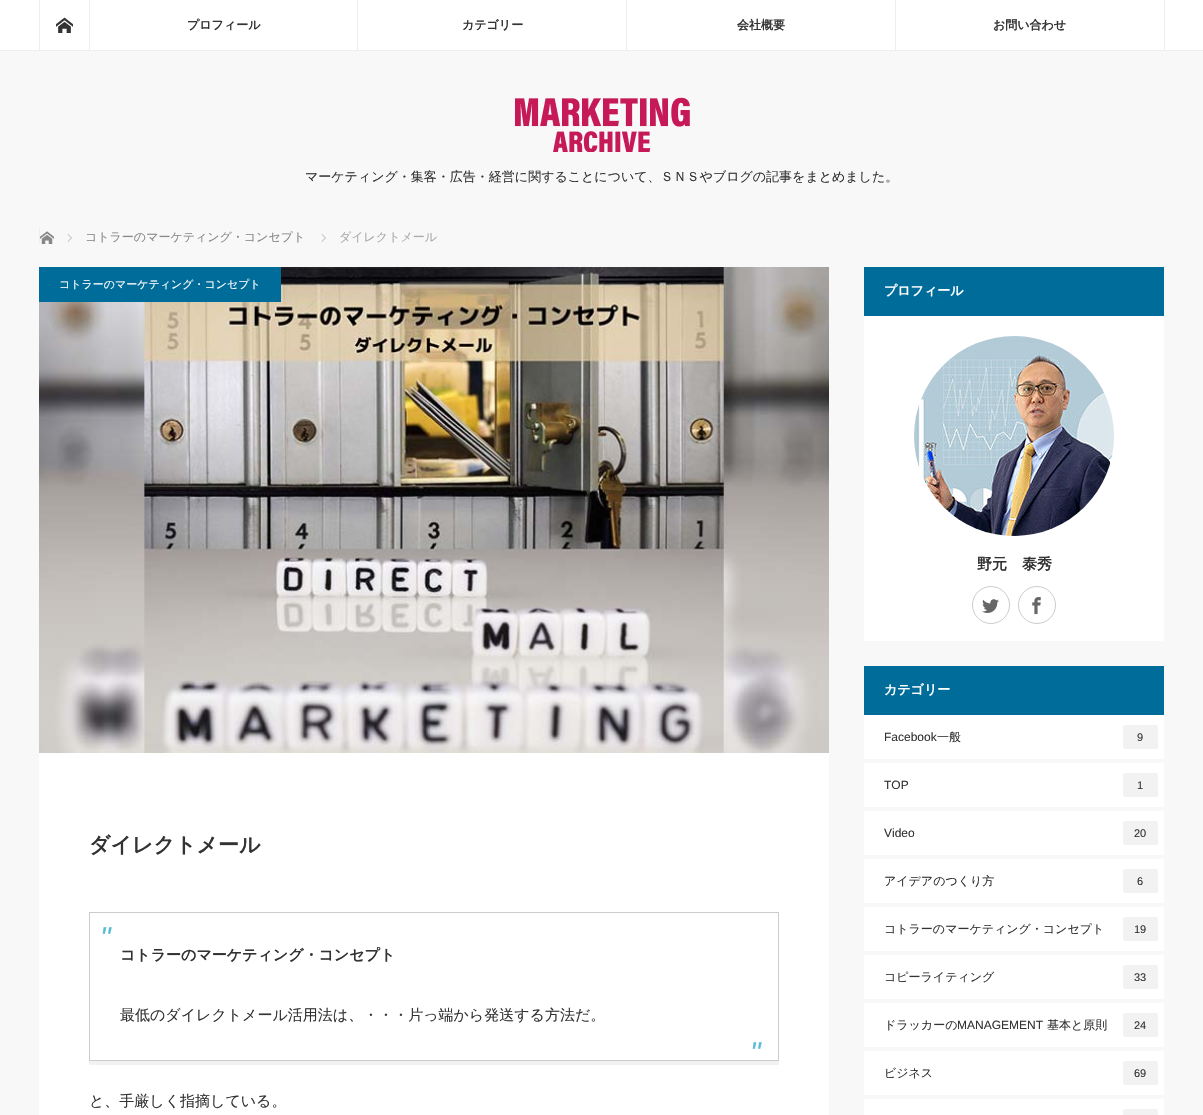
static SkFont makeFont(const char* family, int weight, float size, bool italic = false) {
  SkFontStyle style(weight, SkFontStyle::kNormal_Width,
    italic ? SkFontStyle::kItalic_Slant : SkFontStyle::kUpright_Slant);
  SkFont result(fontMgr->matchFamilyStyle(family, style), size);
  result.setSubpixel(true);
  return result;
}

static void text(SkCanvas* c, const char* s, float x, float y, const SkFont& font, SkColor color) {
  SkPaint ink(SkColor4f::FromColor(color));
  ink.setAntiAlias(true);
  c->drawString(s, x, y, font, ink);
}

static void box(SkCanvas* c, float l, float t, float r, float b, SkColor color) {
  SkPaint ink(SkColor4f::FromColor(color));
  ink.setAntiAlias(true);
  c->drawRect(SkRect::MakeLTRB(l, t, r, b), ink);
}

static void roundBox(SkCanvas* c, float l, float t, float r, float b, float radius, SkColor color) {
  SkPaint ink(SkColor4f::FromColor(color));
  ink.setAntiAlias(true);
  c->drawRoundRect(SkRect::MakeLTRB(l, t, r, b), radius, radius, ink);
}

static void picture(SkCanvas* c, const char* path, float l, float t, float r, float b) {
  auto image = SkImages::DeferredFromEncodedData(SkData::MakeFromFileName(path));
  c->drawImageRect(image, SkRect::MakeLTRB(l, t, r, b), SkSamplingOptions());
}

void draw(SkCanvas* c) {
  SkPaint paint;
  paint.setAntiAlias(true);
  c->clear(0xfff8f8f8);
  box(c, 0, 0, 1203, 50, 0xffffffff);
  box(c, 0, 50, 1203, 51, 0xffeeeeee);
  box(c, 1164, 0, 1165, 50, 0xffeeeeee);
  box(c, 39, 0, 40, 50, 0xffeeeeee);
  picture(c, "img_01.png", 56, 17, 73, 33);
  box(c, 89, 0, 90, 50, 0xffeeeeee);
  SkFont face1 = makeFont("WenQuanYi Zen Hei", 700, 12);
  text(c, "プロフィール", 187, 29, face1, 0xff333333);
  box(c, 357, 0, 358, 50, 0xffeeeeee);
  text(c, "カテゴリー", 462, 29, face1, 0xff333333);
  box(c, 626, 0, 627, 50, 0xffeeeeee);
  text(c, "会社概要", 737, 29, face1, 0xff333333);
  box(c, 895, 0, 896, 50, 0xffeeeeee);
  text(c, "お問い合わせ", 993, 29, face1, 0xff333333);
  picture(c, "img_02.png", 515, 97, 690, 152);
  SkFont face2 = makeFont("WenQuanYi Zen Hei", 500, 13);
  text(c, "マーケティング・集客・広告・経営に関することについて、ＳＮＳやブログの記事をまとめました。", 305, 181, face2, 0xff333333);
  box(c, 39, 228, 40, 243, 0xffeeeeee);
  picture(c, "img_03.png", 40, 231, 54, 244);
  picture(c, "img_04.png", 67, 234, 72, 242);
  SkFont face3 = makeFont("WenQuanYi Zen Hei", 500, 12);
  text(c, "コトラーのマーケティング・コンセプト", 85, 241, face3, 0xff888888);
  picture(c, "img_04.png", 321, 234, 326, 242);
  text(c, "ダイレクトメール", 339, 241, face3, 0xffaaaaaa);
  box(c, 39, 753, 829, 1115, 0xffffffff);
  picture(c, "img_05.png", 39, 267, 829, 753);
  box(c, 39, 267, 281, 302, 0xff006c9a);
  SkFont face4 = makeFont("WenQuanYi Zen Hei", 500, 11);
  text(c, "コトラーのマーケティング・コンセプト", 59, 288, face4, 0xffffffff);
  SkFont face5 = makeFont("WenQuanYi Zen Hei", 700, 21);
  text(c, "ダイレクトメール", 89, 852, face5, 0xff333333);
  box(c, 89, 1061, 779, 1065, 0xfff2f2f2);
  paint.setStyle(SkPaint::kStroke_Style);
  paint.setStrokeWidth(1);
  paint.setColor(0xffcccccc);
  c->drawRect(SkRect::MakeLTRB(89.5f, 912.5f, 778.5f, 1060.5f), paint);
  SkFont face6 = makeFont("Liberation Sans", 400, 30, true);
  text(c, "\"", 100, 948, face6, 0xff5cbcd7);
  SkFont face7 = makeFont("WenQuanYi Zen Hei", 700, 15);
  text(c, "コトラーのマーケティング・コンセプト", 120, 960, face7, 0xff333333);
  SkFont face8 = makeFont("WenQuanYi Zen Hei", 500, 15);
  text(c, "最低のダイレクトメール活用法は、・・・片っ端から発送する方法だ。", 120, 1020, face8, 0xff333333);
  text(c, "\"", 750, 1063, face6, 0xff5cbcd7);
  text(c, "と、手厳しく指摘している。", 89, 1106, face8, 0xff333333);
  box(c, 864, 316, 1164, 641, 0xffffffff);
  box(c, 864, 267, 1164, 316, 0xff006c9a);
  SkFont face9 = makeFont("WenQuanYi Zen Hei", 700, 13);
  text(c, "プロフィール", 884, 295, face9, 0xffffffff);
  picture(c, "img_06.png", 914, 336, 1114, 536);
  text(c, "野元　泰秀", 977, 569, face7, 0xff333333);
  c->drawCircle(991, 605, 18.5f, paint);
  picture(c, "img_07.png", 982, 599, 999, 613);
  c->drawCircle(1037, 605, 18.5f, paint);
  picture(c, "img_08.png", 1032, 597, 1041, 615);
  box(c, 864, 666, 1164, 715, 0xff006c9a);
  text(c, "カテゴリー", 884, 694, face9, 0xffffffff);
  box(c, 864, 715, 1164, 759, 0xffffffff);
  SkFont face10 = makeFont("Liberation Sans", 400, 12);
  text(c, "Facebook", 884, 741, face10, 0xff333333);
  text(c, "一般", 937, 741, face3, 0xff333333);
  roundBox(c, 1123, 725, 1158, 749, 2, 0xfff2f2f2);
  SkFont face11 = makeFont("Liberation Sans", 400, 11);
  text(c, "9", 1137, 741, face11, 0xff333333);
  box(c, 864, 763, 1164, 807, 0xffffffff);
  text(c, "TOP", 884, 789, face10, 0xff333333);
  roundBox(c, 1123, 773, 1158, 797, 2, 0xfff2f2f2);
  text(c, "1", 1137, 789, face11, 0xff333333);
  box(c, 864, 811, 1164, 855, 0xffffffff);
  text(c, "Video", 884, 837, face10, 0xff333333);
  roundBox(c, 1123, 821, 1158, 845, 2, 0xfff2f2f2);
  text(c, "20", 1134, 837, face11, 0xff333333);
  box(c, 864, 859, 1164, 903, 0xffffffff);
  text(c, "アイデアのつくり方", 884, 885, face3, 0xff333333);
  roundBox(c, 1123, 869, 1158, 893, 2, 0xfff2f2f2);
  text(c, "6", 1137, 885, face11, 0xff333333);
  box(c, 864, 907, 1164, 951, 0xffffffff);
  text(c, "コトラーのマーケティング・コンセプト", 884, 933, face3, 0xff333333);
  roundBox(c, 1123, 917, 1158, 941, 2, 0xfff2f2f2);
  text(c, "19", 1134, 933, face11, 0xff333333);
  box(c, 864, 955, 1164, 999, 0xffffffff);
  text(c, "コピーライティング", 884, 981, face3, 0xff333333);
  roundBox(c, 1123, 965, 1158, 989, 2, 0xfff2f2f2);
  text(c, "33", 1134, 981, face11, 0xff333333);
  box(c, 864, 1003, 1164, 1047, 0xffffffff);
  text(c, "ドラッカーの", 884, 1029, face3, 0xff333333);
  text(c, "MANAGEMENT", 957, 1029, face10, 0xff333333);
  text(c, "基本と原則", 1047, 1029, face3, 0xff333333);
  roundBox(c, 1123, 1013, 1158, 1037, 2, 0xfff2f2f2);
  text(c, "24", 1134, 1029, face11, 0xff333333);
  box(c, 864, 1051, 1164, 1095, 0xffffffff);
  text(c, "ビジネス", 884, 1077, face3, 0xff333333);
  roundBox(c, 1123, 1061, 1158, 1085, 2, 0xfff2f2f2);
  text(c, "69", 1134, 1077, face11, 0xff333333);
  box(c, 864, 1099, 1164, 1115, 0xffffffff);
  roundBox(c, 1123, 1109, 1158, 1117, 2, 0xfff2f2f2);
}
